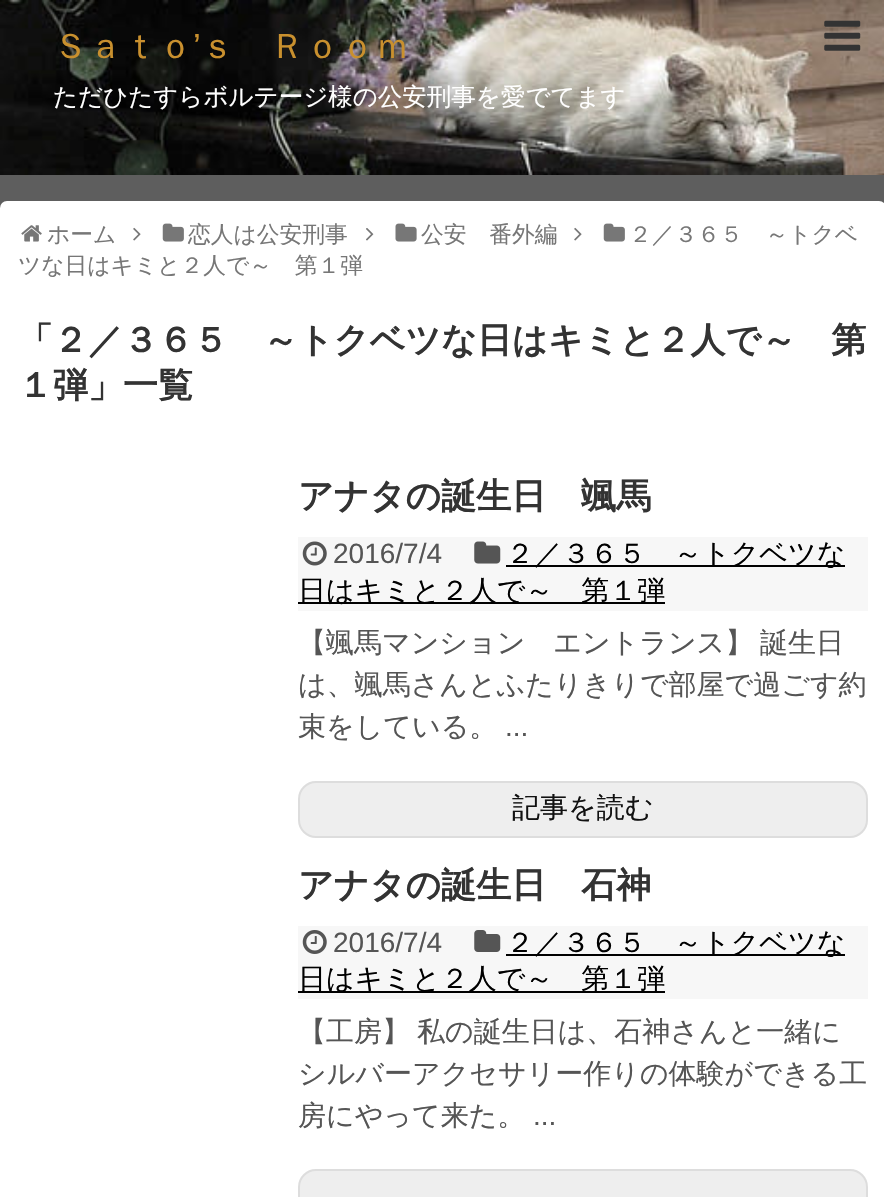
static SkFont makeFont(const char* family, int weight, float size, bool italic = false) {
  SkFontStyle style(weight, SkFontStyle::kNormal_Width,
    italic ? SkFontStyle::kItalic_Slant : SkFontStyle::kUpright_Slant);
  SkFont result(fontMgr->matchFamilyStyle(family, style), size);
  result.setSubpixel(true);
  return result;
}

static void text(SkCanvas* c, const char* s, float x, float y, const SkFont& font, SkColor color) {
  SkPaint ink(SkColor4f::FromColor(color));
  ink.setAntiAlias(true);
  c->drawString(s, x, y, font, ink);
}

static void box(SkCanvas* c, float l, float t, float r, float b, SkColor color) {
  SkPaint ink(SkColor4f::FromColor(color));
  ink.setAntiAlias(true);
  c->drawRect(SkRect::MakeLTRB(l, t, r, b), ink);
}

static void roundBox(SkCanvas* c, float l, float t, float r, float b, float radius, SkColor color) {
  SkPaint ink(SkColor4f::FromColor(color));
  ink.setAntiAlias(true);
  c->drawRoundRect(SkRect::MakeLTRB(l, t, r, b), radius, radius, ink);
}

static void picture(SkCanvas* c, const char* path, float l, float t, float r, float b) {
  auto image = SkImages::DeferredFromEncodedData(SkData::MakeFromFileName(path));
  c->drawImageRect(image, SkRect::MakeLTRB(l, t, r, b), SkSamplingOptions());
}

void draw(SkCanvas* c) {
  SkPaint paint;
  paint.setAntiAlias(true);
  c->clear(0xff5e5e5e);
  picture(c, "img_01.png", 0, 0, 884, 175);
  SkFont face1 = makeFont("WenQuanYi Zen Hei", 500, 35);
  text(c, "Ｓａｔｏ", 53, 58, face1, 0xffc9902e);
  SkFont face2 = makeFont("Liberation Sans", 400, 35);
  text(c, "’", 193, 58, face2, 0xffc9902e);
  text(c, "ｓ　Ｒｏｏｍ", 200, 58, face1, 0xffc9902e);
  SkFont face3 = makeFont("WenQuanYi Zen Hei", 500, 24.5f);
  text(c, "ただひたすらボルテージ様の公安刑事を愛でてます", 53, 105, face3, 0xffffffff);
  picture(c, "img_02.png", 824, 20, 861, 51);
  roundBox(c, 0, 201, 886, 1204, 7, 0xffffffff);
  picture(c, "img_03.png", 162, 223, 184, 242);
  SkFont face4 = makeFont("WenQuanYi Zen Hei", 500, 22.75f);
  text(c, "恋人は公安刑事", 188, 242, face4, 0xff777777);
  picture(c, "img_04.png", 366, 228, 374, 241);
  picture(c, "img_05.png", 395, 223, 417, 242);
  text(c, "公安　番外編", 421, 242, face4, 0xff777777);
  picture(c, "img_06.png", 574, 227, 582, 241);
  picture(c, "img_03.png", 603, 223, 625, 242);
  text(c, "２／３６５　～トクベ", 629, 242, face4, 0xff777777);
  text(c, "ツな日はキミと２人で～　第１弾", 18, 273, face4, 0xff777777);
  picture(c, "img_07.png", 21, 225, 42, 242);
  text(c, "ホーム", 47, 242, face4, 0xff777777);
  picture(c, "img_06.png", 133, 227, 141, 241);
  SkFont face5 = makeFont("WenQuanYi Zen Hei", 700, 35);
  text(c, "「２／３６５　～トクベツな日はキミと２人で～　第", 18, 352, face5, 0xff333333);
  text(c, "１弾」一覧", 18, 397, face5, 0xff333333);
  text(c, "アナタの誕生日　颯馬", 298, 508, face5, 0xff333333);
  box(c, 298, 537, 868, 611, 0xfff7f7f7);
  picture(c, "img_08.png", 474, 541, 501, 564);
  box(c, 506, 565, 845, 567, 0xff000000);
  SkFont face6 = makeFont("WenQuanYi Zen Hei", 500, 28);
  text(c, "２／３６５　～トクベツな", 506, 563, face6, 0xff000000);
  box(c, 298, 602, 665, 604, 0xff000000);
  text(c, "日はキミと２人で～　第１弾", 298, 600, face6, 0xff000000);
  picture(c, "img_09.png", 302, 541, 327, 566);
  SkFont face7 = makeFont("Liberation Sans", 400, 28);
  text(c, "2016/7/4", 333, 563, face7, 0xff555555);
  text(c, "【颯馬マンション　エントランス】", 298, 652, face6, 0xff555555);
  text(c, "誕生日", 760, 652, face6, 0xff555555);
  text(c, "は、颯馬さんとふたりきりで部屋で過ごす約", 298, 694, face6, 0xff555555);
  text(c, "束をしている。", 298, 736, face6, 0xff555555);
  text(c, "...", 505, 736, face7, 0xff555555);
  paint.setColor(0xffeeeeee);
  c->drawRoundRect(SkRect::MakeLTRB(299, 782, 867, 837), 17, 17, paint);
  paint.setStyle(SkPaint::kStroke_Style);
  paint.setStrokeWidth(2);
  paint.setColor(0xffdddddd);
  c->drawRoundRect(SkRect::MakeLTRB(299, 782, 867, 837), 17, 17, paint);
  text(c, "記事を読む", 512, 817, face6, 0xff111111);
  text(c, "アナタの誕生日　石神", 298, 897, face5, 0xff333333);
  box(c, 298, 926, 868, 999, 0xfff7f7f7);
  picture(c, "img_10.png", 474, 930, 501, 952);
  box(c, 506, 954, 845, 956, 0xff000000);
  text(c, "２／３６５　～トクベツな", 506, 952, face6, 0xff000000);
  box(c, 298, 991, 665, 993, 0xff000000);
  text(c, "日はキミと２人で～　第１弾", 298, 988, face6, 0xff000000);
  picture(c, "img_11.png", 302, 930, 327, 954);
  text(c, "2016/7/4", 333, 952, face7, 0xff555555);
  text(c, "【工房】", 298, 1041, face6, 0xff555555);
  text(c, "私の誕生日は、石神さんと一緒に", 417, 1041, face6, 0xff555555);
  text(c, "シルバーアクセサリー作りの体験ができる工", 298, 1083, face6, 0xff555555);
  text(c, "房にやって来た。", 298, 1125, face6, 0xff555555);
  text(c, "...", 533, 1125, face7, 0xff555555);
  paint.setStyle(SkPaint::kFill_Style);
  paint.setColor(0xffeeeeee);
  c->drawRoundRect(SkRect::MakeLTRB(299, 1170, 867, 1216), 17, 17, paint);
  paint.setStyle(SkPaint::kStroke_Style);
  paint.setColor(0xffdddddd);
  c->drawRoundRect(SkRect::MakeLTRB(299, 1170, 867, 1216), 17, 17, paint);
}
